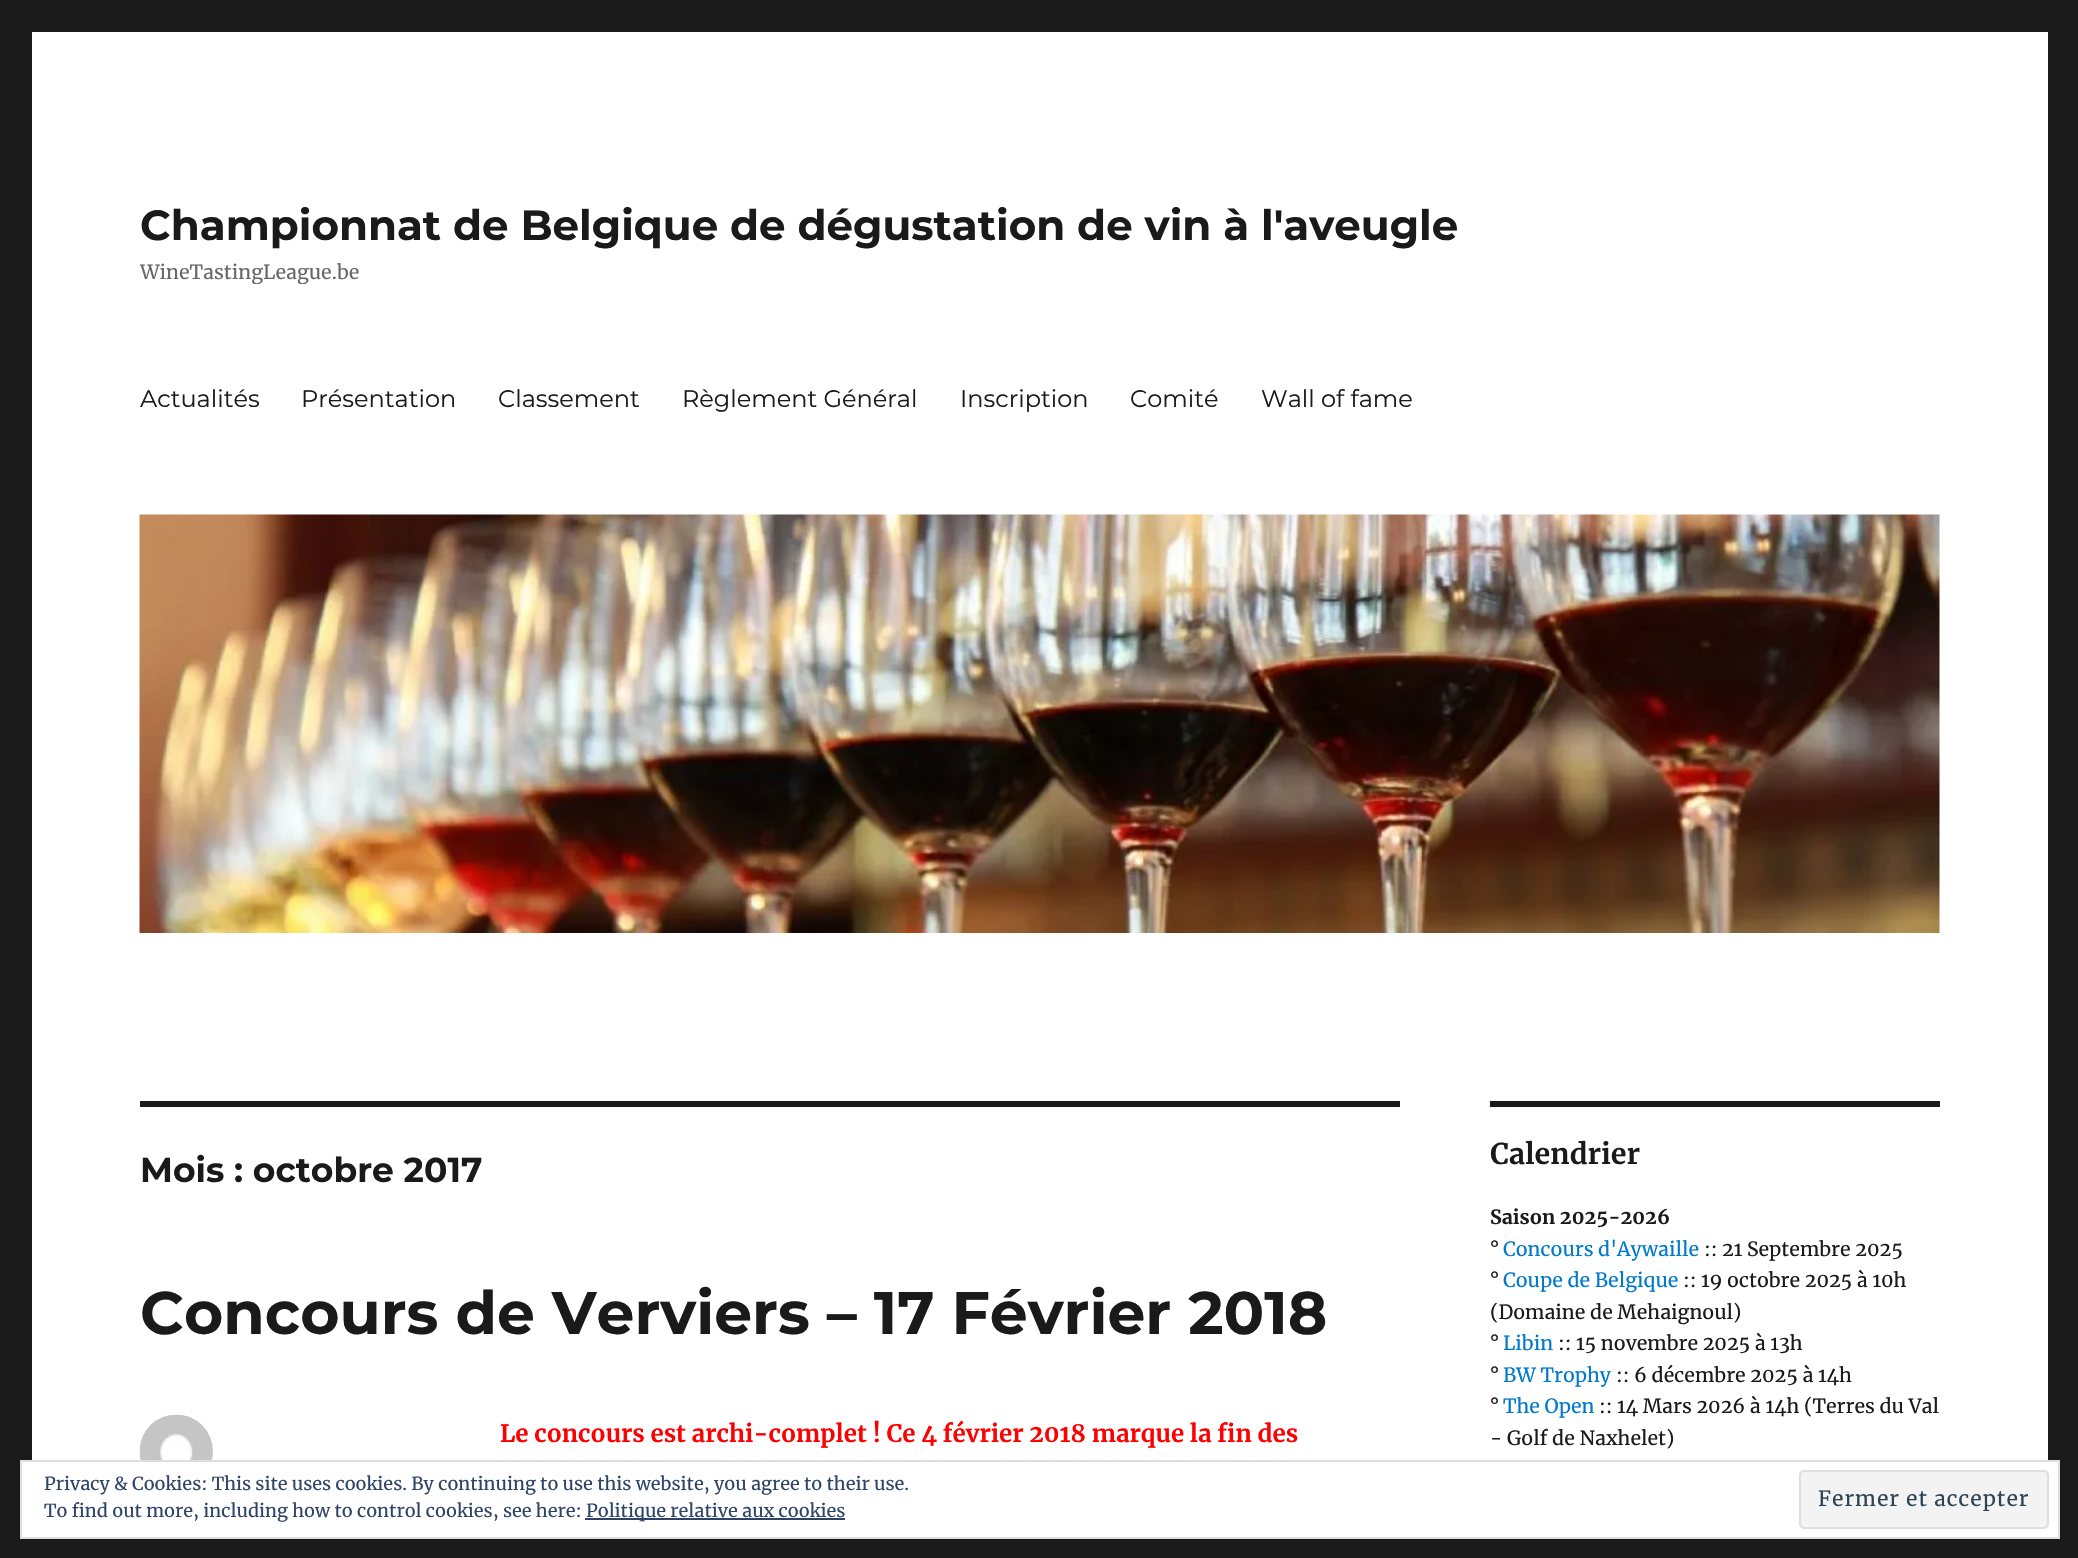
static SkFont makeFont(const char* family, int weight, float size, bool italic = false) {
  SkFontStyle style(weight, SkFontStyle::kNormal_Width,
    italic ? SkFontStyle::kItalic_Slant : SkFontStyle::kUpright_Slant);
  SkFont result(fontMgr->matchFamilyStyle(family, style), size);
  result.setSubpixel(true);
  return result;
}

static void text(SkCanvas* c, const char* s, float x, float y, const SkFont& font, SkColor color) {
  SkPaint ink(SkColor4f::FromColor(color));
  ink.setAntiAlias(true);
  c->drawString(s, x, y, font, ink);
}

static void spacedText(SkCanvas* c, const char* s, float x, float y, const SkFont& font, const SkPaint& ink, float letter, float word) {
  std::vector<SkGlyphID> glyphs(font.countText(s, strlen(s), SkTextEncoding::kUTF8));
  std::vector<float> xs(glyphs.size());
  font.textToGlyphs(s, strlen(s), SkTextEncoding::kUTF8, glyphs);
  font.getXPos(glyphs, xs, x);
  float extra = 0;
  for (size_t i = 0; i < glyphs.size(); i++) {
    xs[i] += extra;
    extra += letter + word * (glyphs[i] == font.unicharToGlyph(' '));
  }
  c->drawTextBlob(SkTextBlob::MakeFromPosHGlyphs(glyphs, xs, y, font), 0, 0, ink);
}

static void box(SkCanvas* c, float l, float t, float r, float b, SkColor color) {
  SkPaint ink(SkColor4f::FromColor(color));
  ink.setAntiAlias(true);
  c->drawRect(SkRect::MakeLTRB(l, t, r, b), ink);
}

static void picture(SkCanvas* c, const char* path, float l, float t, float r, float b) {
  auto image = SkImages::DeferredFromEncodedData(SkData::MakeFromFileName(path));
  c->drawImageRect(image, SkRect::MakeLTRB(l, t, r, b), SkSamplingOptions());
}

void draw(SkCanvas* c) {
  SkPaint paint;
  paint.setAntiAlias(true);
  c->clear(0xff1a1a1a);
  box(c, 32, 32, 2048, 1460, 0xffffffff);
  SkFont face1 = makeFont("Montserrat", 100, 42);
  text(c, "Championnat de Belgique de dégustation de vin à l'aveugle", 140, 240, face1, 0xff1a1a1a);
  c->save();
  c->clipRect(SkRect::MakeLTRB(140, 200, 1458, 284));
  SkFont face2 = makeFont("Merriweather", 400, 19.5f);
  text(c, "WineTastingLeague.be", 140, 279, face2, 0xff686868);
  c->restore();
  SkFont face3 = makeFont("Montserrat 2", 100, 24);
  text(c, "Actualités", 140, 407, face3, 0xff1a1a1a);
  text(c, "Présentation", 301, 407, face3, 0xff1a1a1a);
  text(c, "Classement", 498, 407, face3, 0xff1a1a1a);
  text(c, "Règlement Général", 682, 407, face3, 0xff1a1a1a);
  text(c, "Inscription", 960, 407, face3, 0xff1a1a1a);
  text(c, "Comité", 1130, 407, face3, 0xff1a1a1a);
  text(c, "Wall of fame", 1261, 407, face3, 0xff1a1a1a);
  picture(c, "img_01.png", 139, 514, 1940, 933);
  box(c, 140, 1101, 1400, 1107, 0xff1a1a1a);
  SkFont face4 = makeFont("Montserrat", 100, 34.5f);
  text(c, "Mois : octobre 2017", 140, 1182, face4, 0xff1a1a1a);
  SkFont face5 = makeFont("Montserrat", 100, 60);
  text(c, "Concours de Verviers – 17 Février 2018", 140, 1334, face5, 0xff1a1a1a);
  picture(c, "img_02.png", 139, 1414, 213, 1460);
  SkFont face6 = makeFont("Merriweather", 700, 24);
  text(c, "Le concours est archi-complet ! Ce 4 février 2018 marque la fin des", 500, 1442, face6, 0xffff0000);
  box(c, 1490, 1101, 1940, 1107, 0xff1a1a1a);
  SkFont face7 = makeFont("Merriweather", 700, 28.5f);
  text(c, "Calendrier", 1490, 1164, face7, 0xff1a1a1a);
  SkFont face8 = makeFont("Merriweather", 700, 19.5f);
  text(c, "Saison 2025-2026", 1490, 1224, face8, 0xff1a1a1a);
  text(c, "°", 1490, 1256, face2, 0xff1a1a1a);
  text(c, "Concours d'Aywaille", 1503, 1256, face2, 0xff007acc);
  text(c, ":: 21 Septembre 2025", 1704, 1256, face2, 0xff1a1a1a);
  text(c, "°", 1490, 1287, face2, 0xff1a1a1a);
  text(c, "Coupe de Belgique", 1503, 1287, face2, 0xff007acc);
  text(c, ":: 19 octobre 2025 à 10h", 1683, 1287, face2, 0xff1a1a1a);
  text(c, "(Domaine de Mehaignoul)", 1490, 1319, face2, 0xff1a1a1a);
  text(c, "°", 1490, 1350, face2, 0xff1a1a1a);
  text(c, "Libin", 1503, 1350, face2, 0xff007acc);
  text(c, ":: 15 novembre 2025 à 13h", 1558, 1350, face2, 0xff1a1a1a);
  text(c, "°", 1490, 1382, face2, 0xff1a1a1a);
  text(c, "BW Trophy", 1503, 1382, face2, 0xff007acc);
  text(c, ":: 6 décembre 2025 à 14h", 1616, 1382, face2, 0xff1a1a1a);
  text(c, "°", 1490, 1413, face2, 0xff1a1a1a);
  text(c, "The Open", 1503, 1413, face2, 0xff007acc);
  text(c, ":: 14 Mars 2026 à 14h (Terres du Val", 1599, 1413, face2, 0xff1a1a1a);
  text(c, "- Golf de Naxhelet)", 1490, 1445, face2, 0xff1a1a1a);
  paint.setColor(0xffffffff);
  c->drawRect(SkRect::MakeLTRB(21, 1461, 2059, 1538), paint);
  paint.setStyle(SkPaint::kStroke_Style);
  paint.setStrokeWidth(2);
  paint.setColor(0xffdedede);
  c->drawRect(SkRect::MakeLTRB(21, 1461, 2059, 1538), paint);
  SkFont face9 = makeFont("Merriweather", 400, 18);
  text(c, "Privacy & Cookies: This site uses cookies. By continuing to use this website, you agree to their use.", 44, 1490, face9, 0xff2e4467);
  text(c, "To find out more, including how to control cookies, see here:", 44, 1517, face9, 0xff2e4467);
  box(c, 585, 1518, 845, 1520, 0xff2e4467);
  text(c, "Politique relative aux cookies", 586, 1517, face9, 0xff2e4467);
  paint.setStyle(SkPaint::kFill_Style);
  paint.setColor(0xfff3f3f3);
  c->drawRoundRect(SkRect::MakeLTRB(1800, 1471, 2048, 1528), 4, 4, paint);
  paint.setStyle(SkPaint::kStroke_Style);
  paint.setColor(0xffdedede);
  c->drawRoundRect(SkRect::MakeLTRB(1800, 1471, 2048, 1528), 4, 4, paint);
  SkFont face10 = makeFont("Merriweather", 400, 21);
  paint.setStyle(SkPaint::kFill_Style);
  paint.setColor(0xff2e4453);
  spacedText(c, "Fermer et accepter", 1818, 1506, face10, paint, 1, 0);
}
